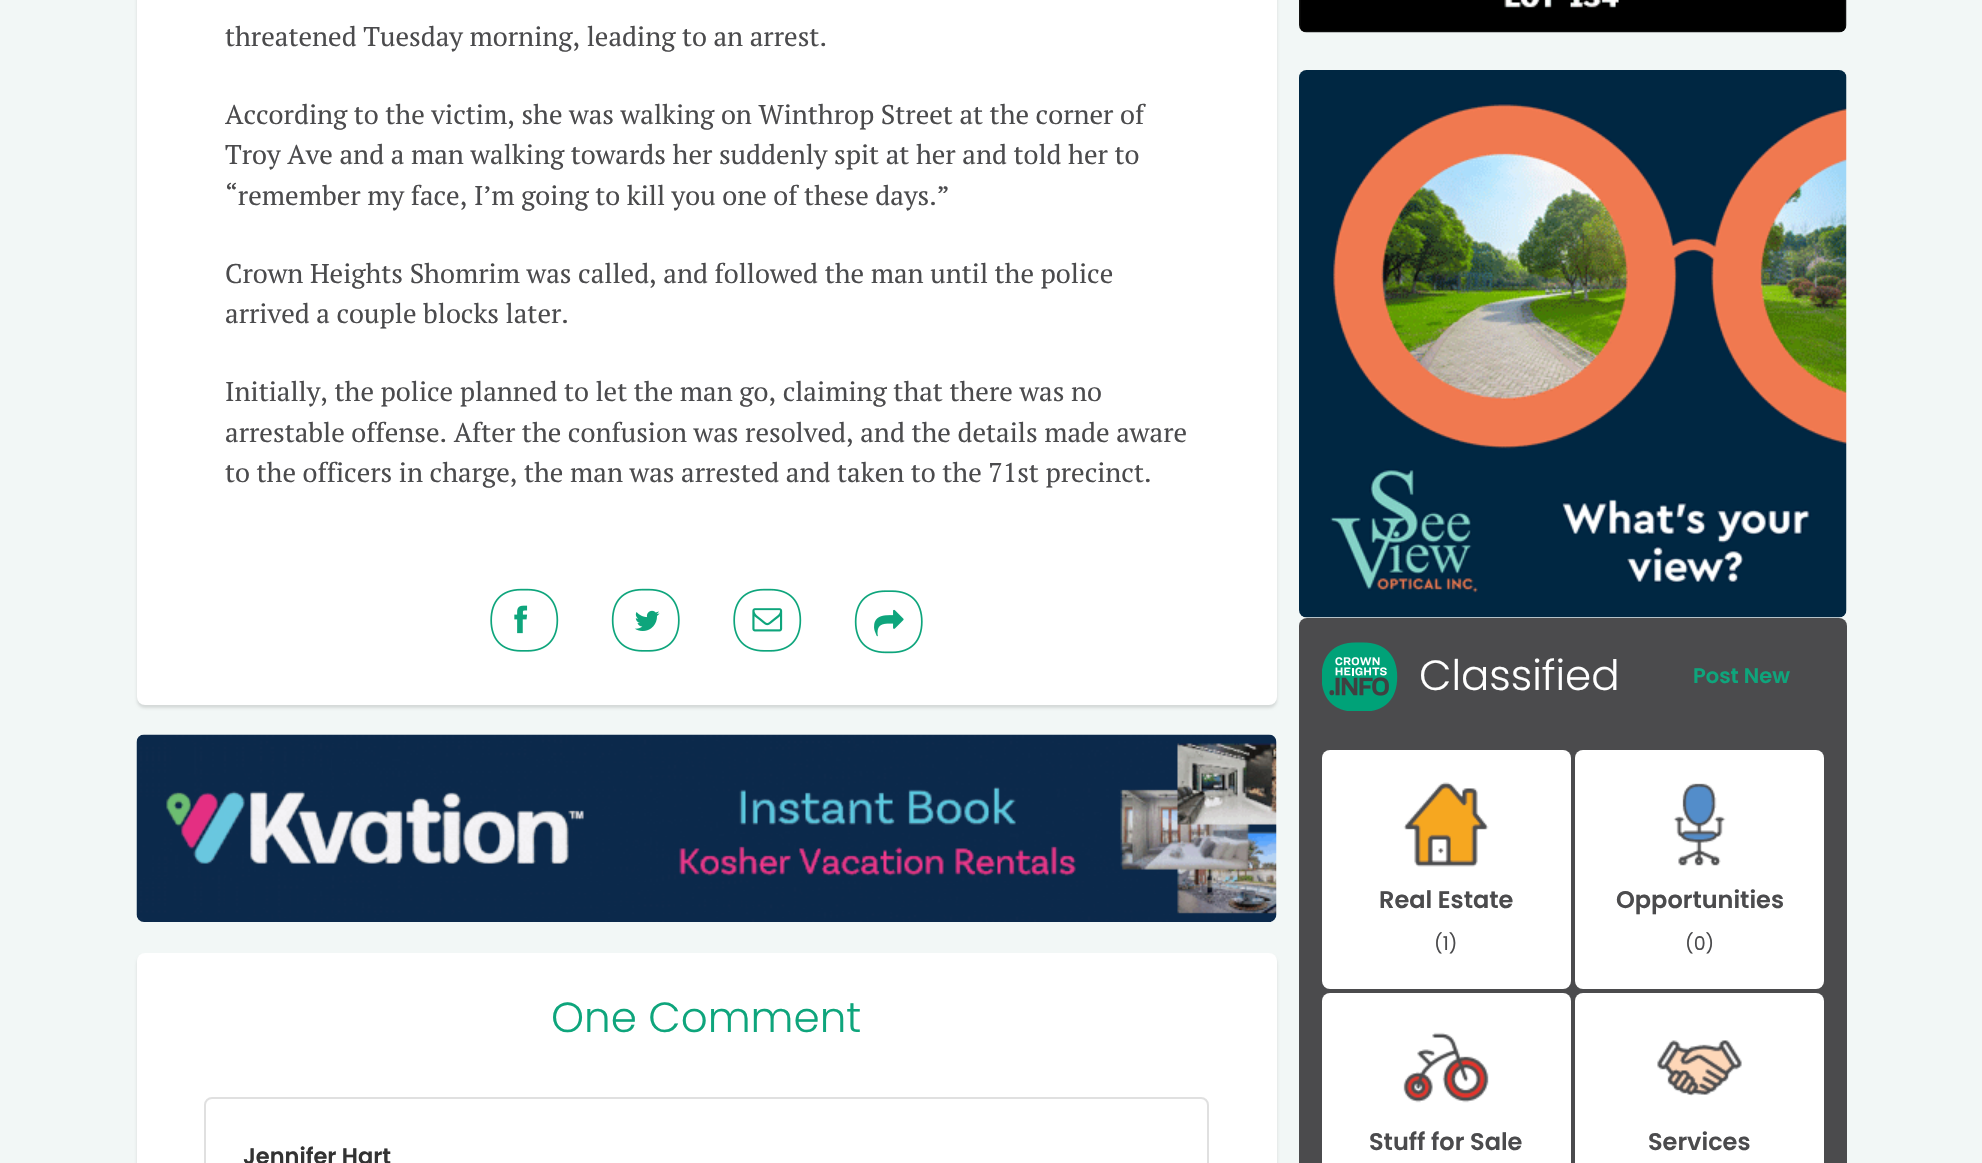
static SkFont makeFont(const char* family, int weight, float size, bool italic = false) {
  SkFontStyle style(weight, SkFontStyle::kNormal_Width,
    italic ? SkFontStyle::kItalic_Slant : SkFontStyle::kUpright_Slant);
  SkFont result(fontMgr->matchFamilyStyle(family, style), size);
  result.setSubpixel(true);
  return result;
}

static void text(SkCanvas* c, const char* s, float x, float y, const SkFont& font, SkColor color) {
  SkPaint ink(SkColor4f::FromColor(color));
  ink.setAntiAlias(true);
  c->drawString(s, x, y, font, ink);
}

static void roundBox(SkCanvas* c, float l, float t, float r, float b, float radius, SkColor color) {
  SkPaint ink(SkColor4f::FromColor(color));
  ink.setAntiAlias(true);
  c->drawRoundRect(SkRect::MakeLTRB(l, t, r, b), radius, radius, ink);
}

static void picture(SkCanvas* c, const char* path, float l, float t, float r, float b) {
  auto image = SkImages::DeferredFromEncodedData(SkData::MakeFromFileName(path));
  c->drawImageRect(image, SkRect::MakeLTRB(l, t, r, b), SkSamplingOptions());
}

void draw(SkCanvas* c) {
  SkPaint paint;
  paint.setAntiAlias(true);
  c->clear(0xfff2f7f6);
  paint.setColor(0x1f000000);
  paint.setMaskFilter(SkMaskFilter::MakeBlur(kNormal_SkBlurStyle, 1.5f));
  c->drawRoundRect(SkRect::MakeLTRB(137, -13, 1277, 708), 8, 8, paint);
  paint.setMaskFilter(nullptr);
  roundBox(c, 137, -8, 1277, 705, 8, 0xffffffff);
  SkFont face1 = makeFont("PT Serif", 400, 27);
  text(c, "threatened Tuesday morning, leading to an arrest.", 225, 46, face1, 0xff4b4b4d);
  text(c, "According to the victim, she was walking on Winthrop Street at the corner of", 225, 124, face1, 0xff4b4b4d);
  text(c, "Troy Ave and a man walking towards her suddenly spit at her and told her to", 225, 164, face1, 0xff4b4b4d);
  text(c, "“remember my face, I’m going to kill you one of these days.”", 225, 205, face1, 0xff4b4b4d);
  text(c, "Crown Heights Shomrim was called, and followed the man until the police", 225, 283, face1, 0xff4b4b4d);
  text(c, "arrived a couple blocks later.", 225, 323, face1, 0xff4b4b4d);
  text(c, "Initially, the police planned to let the man go, claiming that there was no", 225, 401, face1, 0xff4b4b4d);
  text(c, "arrestable offense. After the confusion was resolved, and the details made aware", 225, 442, face1, 0xff4b4b4d);
  text(c, "to the officers in charge, the man was arrested and taken to the 71st precinct.", 225, 482, face1, 0xff4b4b4d);
  picture(c, "img_01.png", 490, 588, 559, 652);
  picture(c, "img_02.png", 611, 588, 680, 652);
  picture(c, "img_03.png", 733, 588, 802, 652);
  picture(c, "img_04.png", 854, 590, 923, 654);
  picture(c, "img_05.png", 136, 734, 1277, 922);
  paint.setMaskFilter(SkMaskFilter::MakeBlur(kNormal_SkBlurStyle, 1.5f));
  c->drawRoundRect(SkRect::MakeLTRB(137, 956, 1277, 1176), 8, 8, paint);
  paint.setMaskFilter(nullptr);
  roundBox(c, 137, 953, 1277, 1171, 8, 0xffffffff);
  SkFont face2 = makeFont("Poppins", 300, 42);
  text(c, "One Comment", 551, 1032, face2, 0xff0ea57c);
  paint.setStyle(SkPaint::kStroke_Style);
  paint.setStrokeWidth(2);
  paint.setColor(0xffe0e0e0);
  c->drawRoundRect(SkRect::MakeLTRB(205, 1098, 1208, 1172), 7, 7, paint);
  SkFont face3 = makeFont("Poppins", 600, 22.5f);
  text(c, "Jennifer Hart", 243, 1164, face3, 0xff333333);
  picture(c, "img_06.png", 1299, 0, 1847, 33);
  picture(c, "img_07.png", 1299, 70, 1847, 618);
  roundBox(c, 1299, 618, 1847, 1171, 8, 0xff4b4b4d);
  picture(c, "img_08.png", 1322, 642, 1398, 711);
  text(c, "Classified", 1419, 690, face2, 0xffffffff);
  SkFont face4 = makeFont("Poppins", 600, 21);
  text(c, "Post New", 1693, 683, face4, 0xff0ea57c);
  roundBox(c, 1322, 750, 1571, 989, 8, 0xffffffff);
  picture(c, "img_09.png", 1403, 782, 1489, 867);
  SkFont face5 = makeFont("Poppins", 600, 24);
  text(c, "Real Estate", 1379, 908, face5, 0xff4b4b4d);
  SkFont face6 = makeFont("Poppins", 400, 19);
  text(c, "(1)", 1434, 950, face6, 0xff4b4b4d);
  roundBox(c, 1575, 750, 1824, 989, 8, 0xffffffff);
  picture(c, "img_10.png", 1673, 783, 1726, 866);
  text(c, "Opportunities", 1616, 908, face5, 0xff4b4b4d);
  text(c, "(0)", 1685, 950, face6, 0xff4b4b4d);
  roundBox(c, 1322, 993, 1571, 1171, 8, 0xffffffff);
  picture(c, "img_11.png", 1403, 1032, 1489, 1103);
  text(c, "Stuff for Sale", 1369, 1150, face5, 0xff4b4b4d);
  roundBox(c, 1575, 993, 1824, 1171, 8, 0xffffffff);
  picture(c, "img_12.png", 1657, 1040, 1742, 1096);
  text(c, "Services", 1648, 1150, face5, 0xff4b4b4d);
}
